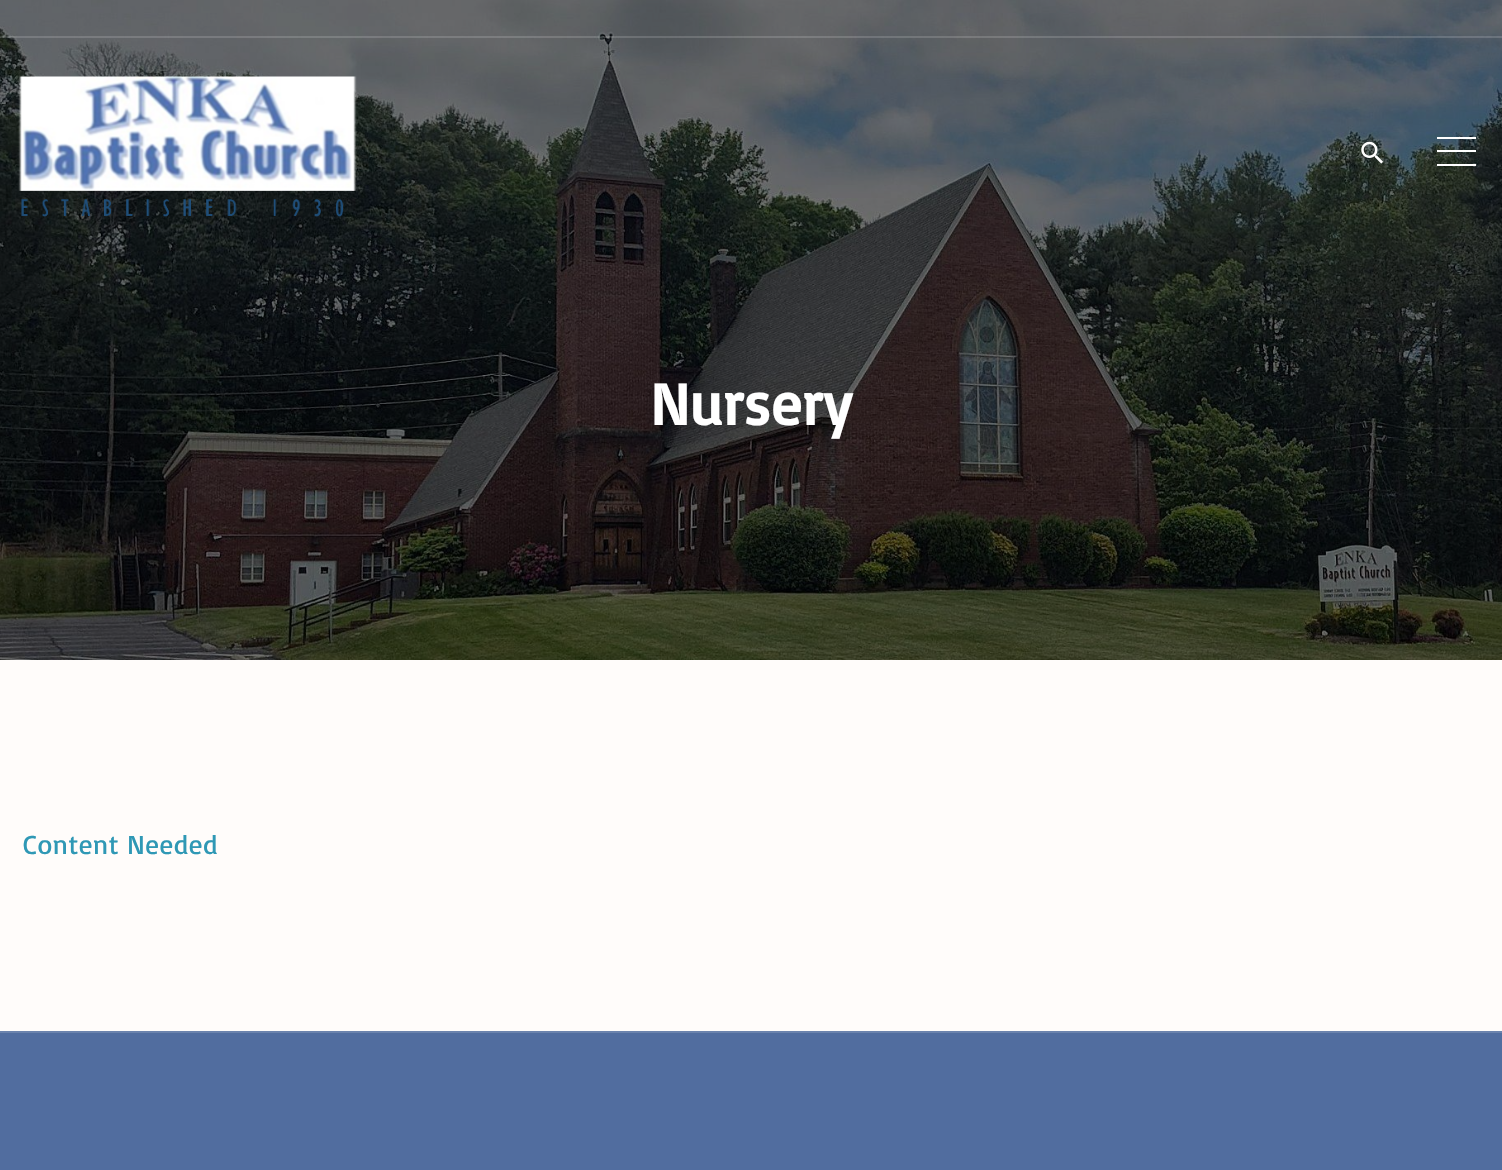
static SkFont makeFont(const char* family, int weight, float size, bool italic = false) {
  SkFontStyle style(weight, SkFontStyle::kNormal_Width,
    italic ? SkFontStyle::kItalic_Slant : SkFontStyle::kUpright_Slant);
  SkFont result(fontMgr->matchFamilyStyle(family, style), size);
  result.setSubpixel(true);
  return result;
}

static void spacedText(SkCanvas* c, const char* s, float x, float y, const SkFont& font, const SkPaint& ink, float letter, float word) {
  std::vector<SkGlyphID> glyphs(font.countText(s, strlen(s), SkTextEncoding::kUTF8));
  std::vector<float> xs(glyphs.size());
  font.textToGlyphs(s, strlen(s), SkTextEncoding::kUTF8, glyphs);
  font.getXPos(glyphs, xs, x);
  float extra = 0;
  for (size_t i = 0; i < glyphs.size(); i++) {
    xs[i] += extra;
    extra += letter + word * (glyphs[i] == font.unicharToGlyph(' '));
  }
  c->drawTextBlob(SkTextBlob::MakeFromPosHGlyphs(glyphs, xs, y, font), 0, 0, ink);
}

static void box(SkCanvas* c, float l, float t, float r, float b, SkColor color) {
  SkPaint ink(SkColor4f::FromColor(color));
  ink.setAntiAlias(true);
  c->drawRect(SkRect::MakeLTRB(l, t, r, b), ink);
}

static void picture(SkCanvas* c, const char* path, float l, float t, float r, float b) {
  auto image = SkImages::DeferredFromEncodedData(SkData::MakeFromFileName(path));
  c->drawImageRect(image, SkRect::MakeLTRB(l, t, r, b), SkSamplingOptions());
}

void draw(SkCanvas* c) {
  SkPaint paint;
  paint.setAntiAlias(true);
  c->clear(0xfffffcfa);
  picture(c, "img_01.png", 0, 0, 1502, 660);
  box(c, 0, 36, 1502, 38, 0x26ffffff);
  picture(c, "img_02.png", 18, 76, 357, 217);
  picture(c, "img_03.png", 1361, 141, 1383, 164);
  box(c, 1437, 150, 1476, 152, 0xffffffff);
  box(c, 1437, 137, 1476, 139, 0xffffffff);
  box(c, 1437, 164, 1476, 166, 0xffffffff);
  SkFont face1 = makeFont("Basic", 700, 60);
  paint.setColor(0xffffffff);
  spacedText(c, "Nursery", 650, 425, face1, paint, 0.5f, 0);
  SkFont face2 = makeFont("Basic", 400, 27);
  paint.setColor(0xff2f98b5);
  spacedText(c, "Content Needed", 23, 854, face2, paint, 0.5f, 0);
  box(c, 0, 1033, 1502, 1170, 0xff516d9f);
  box(c, 0, 1031, 1502, 1033, 0xff6b83ad);
}
